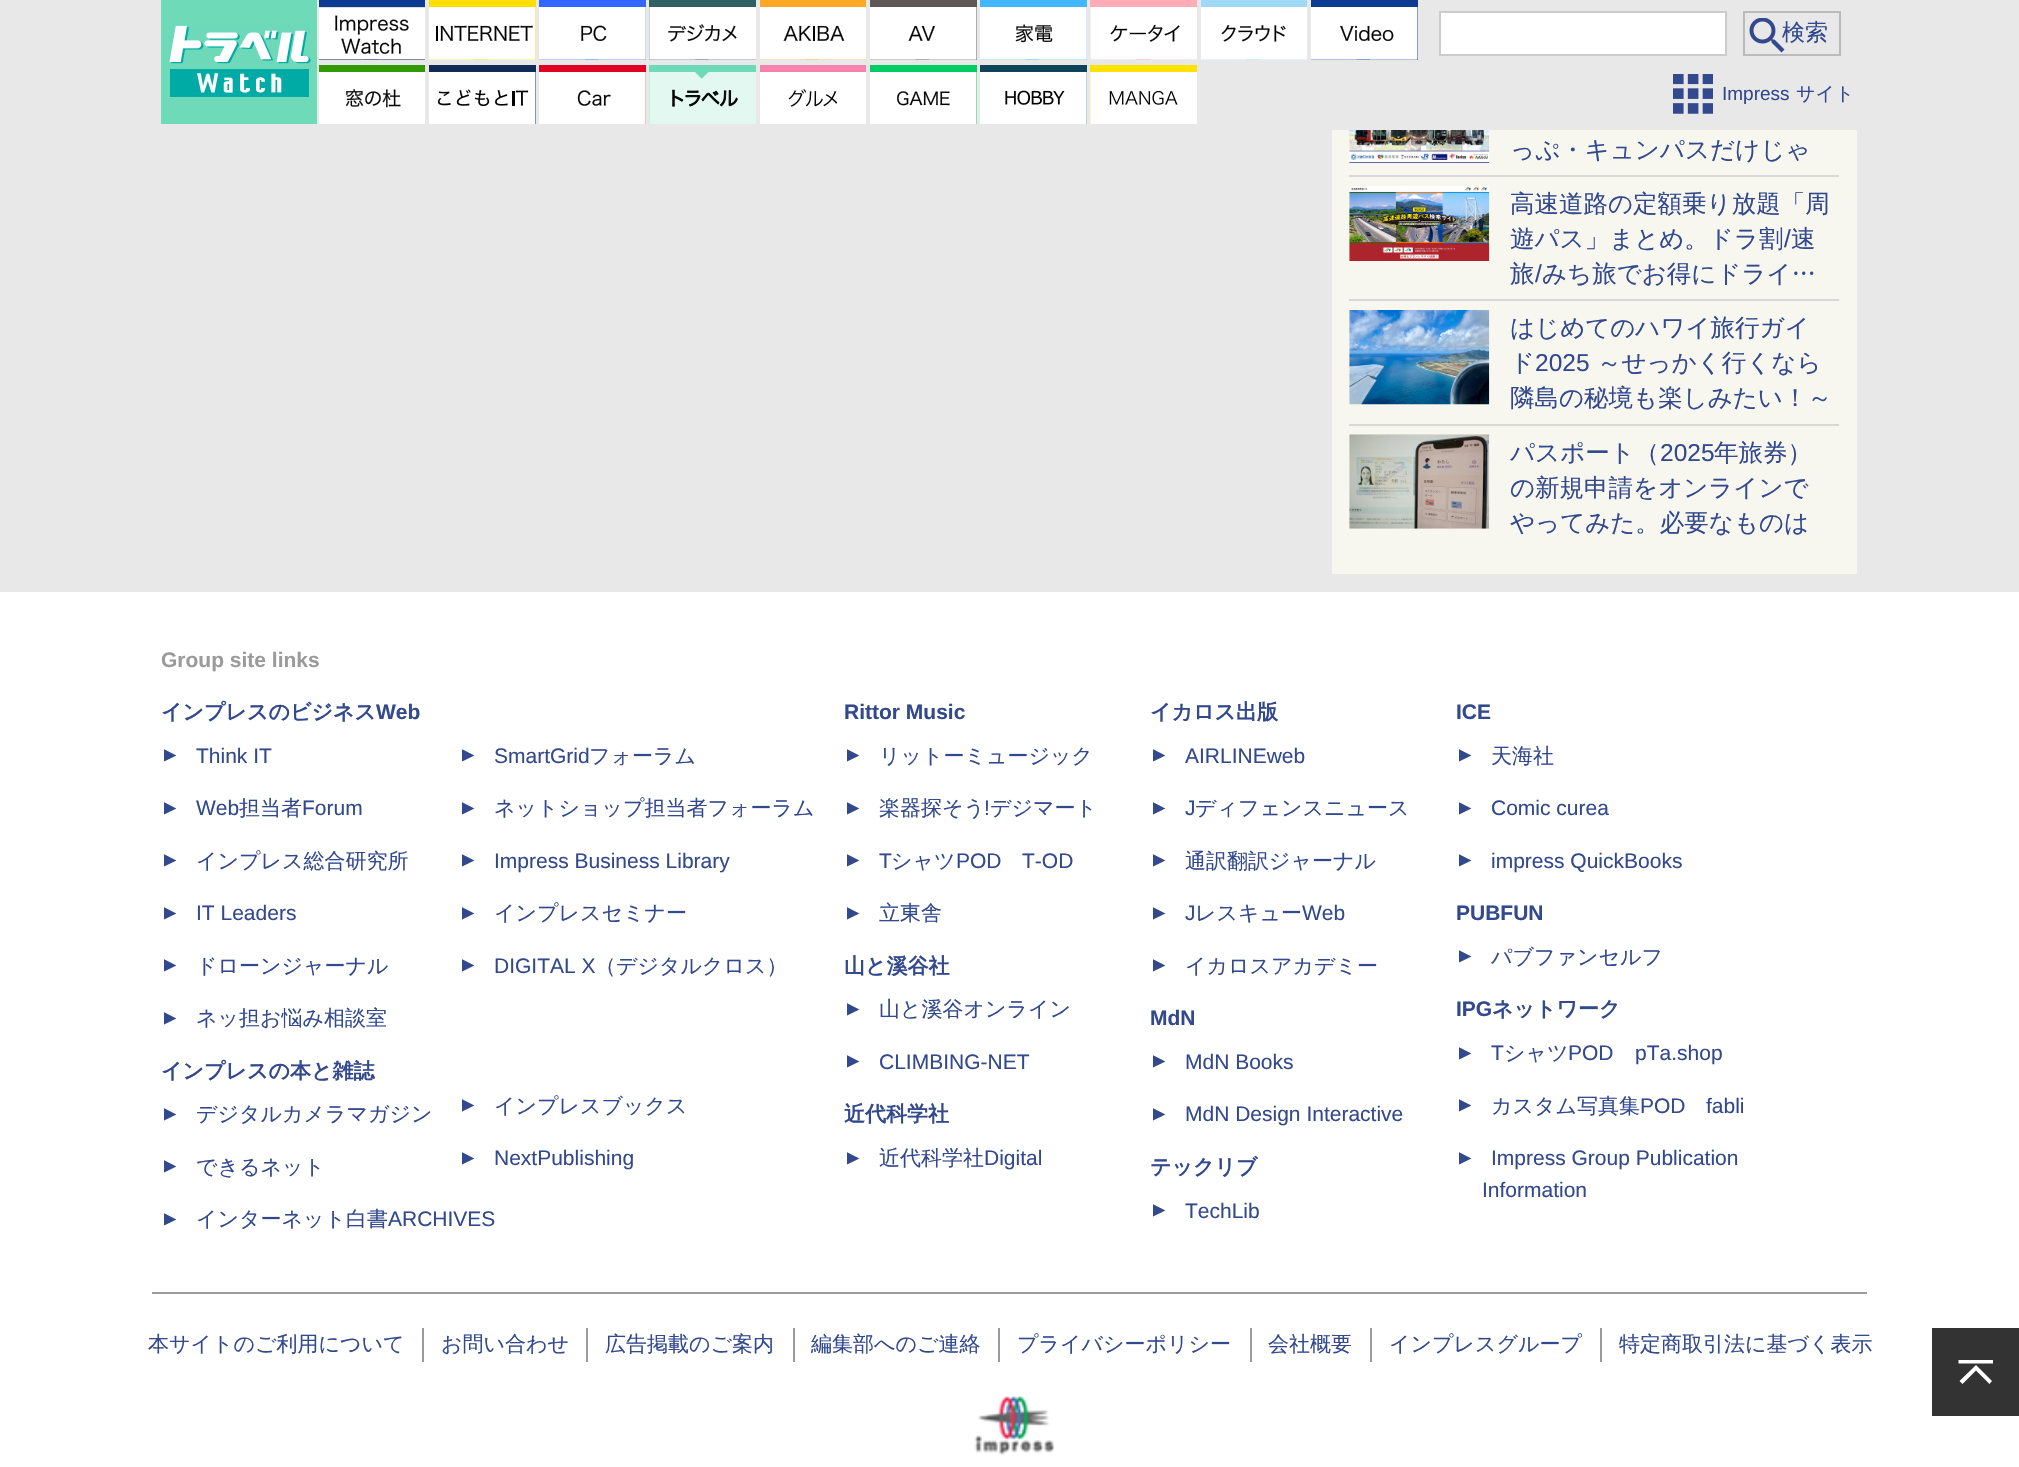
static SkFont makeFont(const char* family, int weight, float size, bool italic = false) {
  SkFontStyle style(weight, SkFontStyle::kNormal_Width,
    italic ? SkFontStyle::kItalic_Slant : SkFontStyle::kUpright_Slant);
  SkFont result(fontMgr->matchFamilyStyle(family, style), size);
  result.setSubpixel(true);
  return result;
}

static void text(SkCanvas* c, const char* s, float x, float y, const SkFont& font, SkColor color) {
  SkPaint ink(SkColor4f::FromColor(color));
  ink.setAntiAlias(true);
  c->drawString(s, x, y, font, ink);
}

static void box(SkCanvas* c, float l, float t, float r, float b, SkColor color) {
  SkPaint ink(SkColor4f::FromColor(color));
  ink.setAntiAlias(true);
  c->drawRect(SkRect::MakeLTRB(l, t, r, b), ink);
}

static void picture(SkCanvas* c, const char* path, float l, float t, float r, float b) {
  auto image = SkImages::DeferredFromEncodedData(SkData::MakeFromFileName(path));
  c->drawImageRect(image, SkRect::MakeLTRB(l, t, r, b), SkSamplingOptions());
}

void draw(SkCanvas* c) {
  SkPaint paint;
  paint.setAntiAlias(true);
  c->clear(0xffe8e8e8);
  box(c, 161, 0, 317, 124, 0xff6edab8);
  picture(c, "img_01.png", 169, 25, 311, 97);
  box(c, 319, 0, 425, 60, 0xff0d3b91);
  picture(c, "img_02.png", 319, 7, 425, 60);
  box(c, 429, 0, 536, 60, 0xffffde00);
  picture(c, "img_03.png", 429, 7, 536, 60);
  box(c, 539, 0, 646, 60, 0xff3366ff);
  picture(c, "img_04.png", 539, 7, 646, 60);
  box(c, 649, 0, 756, 60, 0xff2e6162);
  picture(c, "img_05.png", 649, 7, 756, 60);
  box(c, 760, 0, 866, 60, 0xffffa824);
  picture(c, "img_06.png", 760, 7, 866, 60);
  box(c, 870, 0, 977, 60, 0xff5e5858);
  picture(c, "img_07.png", 870, 7, 977, 60);
  box(c, 980, 0, 1087, 60, 0xff42b6ff);
  picture(c, "img_08.png", 980, 7, 1087, 60);
  box(c, 1090, 0, 1197, 60, 0xffffacb7);
  picture(c, "img_09.png", 1090, 7, 1197, 60);
  box(c, 1201, 0, 1307, 60, 0xff9fd9f6);
  picture(c, "img_10.png", 1201, 7, 1307, 60);
  box(c, 1311, 0, 1418, 60, 0xff0d3b91);
  picture(c, "img_11.png", 1311, 7, 1418, 60);
  paint.setColor(0xffffffff);
  c->drawRect(SkRect::MakeLTRB(1440, 12, 1726, 55), paint);
  paint.setStyle(SkPaint::kStroke_Style);
  paint.setStrokeWidth(2);
  paint.setColor(0xffcccccc);
  c->drawRect(SkRect::MakeLTRB(1440, 12, 1726, 55), paint);
  picture(c, "img_12.png", 1749, 18, 1785, 53);
  paint.setColor(0xffbbbbbb);
  c->drawRect(SkRect::MakeLTRB(1744, 12, 1840, 55), paint);
  SkFont face1 = makeFont("WenQuanYi Zen Hei", 500, 23);
  text(c, "検索", 1782, 40, face1, 0xff33498e);
  box(c, 319, 65, 425, 72, 0xff339900);
  picture(c, "img_13.png", 319, 72, 425, 124);
  box(c, 429, 65, 536, 124, 0xff102c54);
  picture(c, "img_14.png", 429, 72, 536, 124);
  box(c, 539, 65, 646, 124, 0xffe30121);
  picture(c, "img_15.png", 539, 72, 646, 124);
  box(c, 649, 65, 756, 124, 0xff6edab8);
  picture(c, "img_16.png", 649, 72, 756, 124);
  box(c, 760, 65, 866, 72, 0xfff583ae);
  picture(c, "img_17.png", 760, 72, 866, 124);
  box(c, 870, 65, 977, 124, 0xff00cc66);
  picture(c, "img_18.png", 870, 72, 977, 124);
  box(c, 980, 65, 1087, 124, 0xff0e4459);
  picture(c, "img_19.png", 980, 72, 1087, 124);
  box(c, 1090, 65, 1197, 124, 0xffffe200);
  picture(c, "img_20.png", 1090, 72, 1197, 124);
  picture(c, "img_21.png", 1673, 74, 1713, 114);
  SkFont face2 = makeFont("Liberation Sans", 400, 19);
  text(c, "Impress", 1722, 100, face2, 0xff33498e);
  SkFont face3 = makeFont("WenQuanYi Zen Hei", 500, 19);
  text(c, "サイト", 1796, 100, face3, 0xff33498e);
  box(c, 1332, 130, 1857, 574, 0xfff7f7ef);
  box(c, 1349, 175, 1839, 177, 0xffd8d8d8);
  picture(c, "img_22.png", 1349, 130, 1490, 163);
  SkFont face4 = makeFont("WenQuanYi Zen Hei", 500, 24.5f);
  text(c, "っぷ・キュンパスだけじゃ", 1510, 158, face4, 0xff33498e);
  box(c, 1349, 299, 1839, 301, 0xffd8d8d8);
  picture(c, "img_23.png", 1349, 186, 1490, 261);
  text(c, "高速道路の定額乗り放題「周", 1510, 212, face4, 0xff33498e);
  text(c, "遊パス」まとめ。ドラ割", 1510, 247, face4, 0xff33498e);
  SkFont face5 = makeFont("Liberation Sans", 400, 24.5f);
  text(c, "/", 1784, 247, face5, 0xff33498e);
  text(c, "速", 1791, 247, face4, 0xff33498e);
  text(c, "旅", 1510, 282, face4, 0xff33498e);
  text(c, "/", 1535, 282, face5, 0xff33498e);
  text(c, "みち旅でお得にドライ…", 1542, 282, face4, 0xff33498e);
  box(c, 1349, 424, 1839, 426, 0xffd8d8d8);
  picture(c, "img_24.png", 1349, 310, 1490, 405);
  text(c, "はじめてのハワイ旅行ガイ", 1510, 336, face4, 0xff33498e);
  text(c, "ド", 1510, 371, face4, 0xff33498e);
  text(c, "2025", 1535, 371, face5, 0xff33498e);
  text(c, "～せっかく行くなら", 1597, 371, face4, 0xff33498e);
  text(c, "隣島の秘境も楽しみたい！～", 1510, 406, face4, 0xff33498e);
  picture(c, "img_25.png", 1349, 434, 1490, 529);
  text(c, "パスポート（", 1510, 461, face4, 0xff33498e);
  text(c, "2025", 1660, 461, face5, 0xff33498e);
  text(c, "年旅券）", 1714, 461, face4, 0xff33498e);
  text(c, "の新規申請をオンラインで", 1510, 496, face4, 0xff33498e);
  text(c, "やってみた。必要なものは", 1510, 531, face4, 0xff33498e);
  box(c, 0, 592, 2019, 1467, 0xffffffff);
  box(c, 152, 1292, 1867, 1294, 0xff9b9b9b);
  SkFont face6 = makeFont("Liberation Sans", 700, 21);
  text(c, "Group site links", 161, 667, face6, 0xff9b9b9b);
  SkFont face7 = makeFont("WenQuanYi Zen Hei", 700, 21);
  text(c, "インプレスのビジネス", 161, 719, face7, 0xff33498e);
  text(c, "Web", 376, 719, face6, 0xff33498e);
  SkFont face8 = makeFont("Liberation Sans", 400, 21);
  c->save();
  c->rotate(90, 164, 745);
  text(c, "▲", 164, 745, face8, 0xff33498e);
  c->restore();
  text(c, "Think IT", 196, 763, face8, 0xff33498e);
  c->save();
  c->rotate(90, 164, 798);
  text(c, "▲", 164, 798, face8, 0xff33498e);
  c->restore();
  text(c, "Web", 196, 815, face8, 0xff33498e);
  SkFont face9 = makeFont("WenQuanYi Zen Hei", 500, 21);
  text(c, "担当者", 239, 815, face9, 0xff33498e);
  text(c, "Forum", 302, 815, face8, 0xff33498e);
  c->save();
  c->rotate(90, 164, 850);
  text(c, "▲", 164, 850, face8, 0xff33498e);
  c->restore();
  text(c, "インプレス総合研究所", 196, 868, face9, 0xff33498e);
  c->save();
  c->rotate(90, 164, 903);
  text(c, "▲", 164, 903, face8, 0xff33498e);
  c->restore();
  text(c, "IT Leaders", 196, 920, face8, 0xff33498e);
  c->save();
  c->rotate(90, 164, 955);
  text(c, "▲", 164, 955, face8, 0xff33498e);
  c->restore();
  text(c, "ドローンジャーナル", 196, 973, face9, 0xff33498e);
  c->save();
  c->rotate(90, 164, 1008);
  text(c, "▲", 164, 1008, face8, 0xff33498e);
  c->restore();
  text(c, "ネッ担お悩み相談室", 196, 1025, face9, 0xff33498e);
  text(c, "インプレスの本と雑誌", 161, 1078, face7, 0xff33498e);
  c->save();
  c->rotate(90, 164, 1104);
  text(c, "▲", 164, 1104, face8, 0xff33498e);
  c->restore();
  text(c, "デジタルカメラマガジン", 196, 1121, face9, 0xff33498e);
  c->save();
  c->rotate(90, 164, 1156);
  text(c, "▲", 164, 1156, face8, 0xff33498e);
  c->restore();
  text(c, "できるネット", 196, 1174, face9, 0xff33498e);
  c->save();
  c->rotate(90, 164, 1209);
  text(c, "▲", 164, 1209, face8, 0xff33498e);
  c->restore();
  text(c, "インターネット白書", 196, 1226, face9, 0xff33498e);
  text(c, "ARCHIVES", 388, 1226, face8, 0xff33498e);
  c->save();
  c->rotate(90, 462, 745);
  text(c, "▲", 462, 745, face8, 0xff33498e);
  c->restore();
  text(c, "SmartGrid", 494, 763, face8, 0xff33498e);
  text(c, "フォーラム", 589, 763, face9, 0xff33498e);
  c->save();
  c->rotate(90, 462, 798);
  text(c, "▲", 462, 798, face8, 0xff33498e);
  c->restore();
  text(c, "ネットショップ担当者フォーラム", 494, 815, face9, 0xff33498e);
  c->save();
  c->rotate(90, 462, 850);
  text(c, "▲", 462, 850, face8, 0xff33498e);
  c->restore();
  text(c, "Impress Business Library", 494, 868, face8, 0xff33498e);
  c->save();
  c->rotate(90, 462, 903);
  text(c, "▲", 462, 903, face8, 0xff33498e);
  c->restore();
  text(c, "インプレスセミナー", 494, 920, face9, 0xff33498e);
  c->save();
  c->rotate(90, 462, 955);
  text(c, "▲", 462, 955, face8, 0xff33498e);
  c->restore();
  text(c, "DIGITAL X", 494, 973, face8, 0xff33498e);
  text(c, "（デジタルクロス）", 595, 973, face9, 0xff33498e);
  c->save();
  c->rotate(90, 462, 1095);
  text(c, "▲", 462, 1095, face8, 0xff33498e);
  c->restore();
  text(c, "インプレスブックス", 494, 1113, face9, 0xff33498e);
  c->save();
  c->rotate(90, 462, 1148);
  text(c, "▲", 462, 1148, face8, 0xff33498e);
  c->restore();
  text(c, "NextPublishing", 494, 1165, face8, 0xff33498e);
  text(c, "Rittor Music", 844, 719, face6, 0xff33498e);
  c->save();
  c->rotate(90, 847, 745);
  text(c, "▲", 847, 745, face8, 0xff33498e);
  c->restore();
  text(c, "リットーミュージック", 879, 763, face9, 0xff33498e);
  c->save();
  c->rotate(90, 847, 798);
  text(c, "▲", 847, 798, face8, 0xff33498e);
  c->restore();
  text(c, "楽器探そう", 879, 815, face9, 0xff33498e);
  text(c, "!", 984, 815, face8, 0xff33498e);
  text(c, "デジマート", 990, 815, face9, 0xff33498e);
  c->save();
  c->rotate(90, 847, 850);
  text(c, "▲", 847, 850, face8, 0xff33498e);
  c->restore();
  text(c, "T", 879, 868, face8, 0xff33498e);
  text(c, "シャツ", 891, 868, face9, 0xff33498e);
  text(c, "POD", 956, 868, face8, 0xff33498e);
  text(c, "T-OD", 1022, 868, face8, 0xff33498e);
  c->save();
  c->rotate(90, 847, 903);
  text(c, "▲", 847, 903, face8, 0xff33498e);
  c->restore();
  text(c, "立東舎", 879, 920, face9, 0xff33498e);
  text(c, "山と溪谷社", 844, 973, face7, 0xff33498e);
  c->save();
  c->rotate(90, 847, 999);
  text(c, "▲", 847, 999, face8, 0xff33498e);
  c->restore();
  text(c, "山と溪谷オンライン", 879, 1016, face9, 0xff33498e);
  c->save();
  c->rotate(90, 847, 1051);
  text(c, "▲", 847, 1051, face8, 0xff33498e);
  c->restore();
  text(c, "CLIMBING-NET", 879, 1069, face8, 0xff33498e);
  text(c, "近代科学社", 844, 1121, face7, 0xff33498e);
  c->save();
  c->rotate(90, 847, 1148);
  text(c, "▲", 847, 1148, face8, 0xff33498e);
  c->restore();
  text(c, "近代科学社", 879, 1165, face9, 0xff33498e);
  text(c, "Digital", 984, 1165, face8, 0xff33498e);
  text(c, "イカロス出版", 1150, 719, face7, 0xff33498e);
  c->save();
  c->rotate(90, 1153, 745);
  text(c, "▲", 1153, 745, face8, 0xff33498e);
  c->restore();
  text(c, "AIRLINEweb", 1185, 763, face8, 0xff33498e);
  c->save();
  c->rotate(90, 1153, 798);
  text(c, "▲", 1153, 798, face8, 0xff33498e);
  c->restore();
  text(c, "J", 1185, 815, face8, 0xff33498e);
  text(c, "ディフェンスニュース", 1195, 815, face9, 0xff33498e);
  c->save();
  c->rotate(90, 1153, 850);
  text(c, "▲", 1153, 850, face8, 0xff33498e);
  c->restore();
  text(c, "通訳翻訳ジャーナル", 1185, 868, face9, 0xff33498e);
  c->save();
  c->rotate(90, 1153, 903);
  text(c, "▲", 1153, 903, face8, 0xff33498e);
  c->restore();
  text(c, "J", 1185, 920, face8, 0xff33498e);
  text(c, "レスキュー", 1195, 920, face9, 0xff33498e);
  text(c, "Web", 1302, 920, face8, 0xff33498e);
  c->save();
  c->rotate(90, 1153, 955);
  text(c, "▲", 1153, 955, face8, 0xff33498e);
  c->restore();
  text(c, "イカロスアカデミー", 1185, 973, face9, 0xff33498e);
  text(c, "MdN", 1150, 1025, face6, 0xff33498e);
  c->save();
  c->rotate(90, 1153, 1051);
  text(c, "▲", 1153, 1051, face8, 0xff33498e);
  c->restore();
  text(c, "MdN Books", 1185, 1069, face8, 0xff33498e);
  c->save();
  c->rotate(90, 1153, 1104);
  text(c, "▲", 1153, 1104, face8, 0xff33498e);
  c->restore();
  text(c, "MdN Design Interactive", 1185, 1121, face8, 0xff33498e);
  text(c, "テックリブ", 1150, 1174, face7, 0xff33498e);
  c->save();
  c->rotate(90, 1153, 1200);
  text(c, "▲", 1153, 1200, face8, 0xff33498e);
  c->restore();
  text(c, "TechLib", 1185, 1218, face8, 0xff33498e);
  text(c, "ICE", 1456, 719, face6, 0xff33498e);
  c->save();
  c->rotate(90, 1459, 745);
  text(c, "▲", 1459, 745, face8, 0xff33498e);
  c->restore();
  text(c, "天海社", 1491, 763, face9, 0xff33498e);
  c->save();
  c->rotate(90, 1459, 798);
  text(c, "▲", 1459, 798, face8, 0xff33498e);
  c->restore();
  text(c, "Comic curea", 1491, 815, face8, 0xff33498e);
  c->save();
  c->rotate(90, 1459, 850);
  text(c, "▲", 1459, 850, face8, 0xff33498e);
  c->restore();
  text(c, "impress QuickBooks", 1491, 868, face8, 0xff33498e);
  text(c, "PUBFUN", 1456, 920, face6, 0xff33498e);
  c->save();
  c->rotate(90, 1459, 946);
  text(c, "▲", 1459, 946, face8, 0xff33498e);
  c->restore();
  text(c, "パブファンセルフ", 1491, 964, face9, 0xff33498e);
  text(c, "IPG", 1456, 1016, face6, 0xff33498e);
  text(c, "ネットワーク", 1492, 1016, face7, 0xff33498e);
  c->save();
  c->rotate(90, 1459, 1043);
  text(c, "▲", 1459, 1043, face8, 0xff33498e);
  c->restore();
  text(c, "T", 1491, 1060, face8, 0xff33498e);
  text(c, "シャツ", 1504, 1060, face9, 0xff33498e);
  text(c, "POD", 1568, 1060, face8, 0xff33498e);
  text(c, "pTa.shop", 1635, 1060, face8, 0xff33498e);
  c->save();
  c->rotate(90, 1459, 1095);
  text(c, "▲", 1459, 1095, face8, 0xff33498e);
  c->restore();
  text(c, "カスタム写真集", 1491, 1113, face9, 0xff33498e);
  text(c, "POD", 1640, 1113, face8, 0xff33498e);
  text(c, "fabli", 1706, 1113, face8, 0xff33498e);
  c->save();
  c->rotate(90, 1459, 1148);
  text(c, "▲", 1459, 1148, face8, 0xff33498e);
  c->restore();
  text(c, "Impress Group Publication", 1491, 1165, face8, 0xff33498e);
  text(c, "Information", 1482, 1197, face8, 0xff33498e);
  box(c, 422, 1328, 424, 1362, 0xff9b9b9b);
  text(c, "本サイトのご利用について", 148, 1351, face9, 0xff33498e);
  box(c, 586, 1328, 588, 1362, 0xff9b9b9b);
  text(c, "お問い合わせ", 441, 1351, face9, 0xff33498e);
  box(c, 793, 1328, 795, 1362, 0xff9b9b9b);
  text(c, "広告掲載のご案内", 605, 1351, face9, 0xff33498e);
  box(c, 998, 1328, 1000, 1362, 0xff9b9b9b);
  text(c, "編集部へのご連絡", 811, 1351, face9, 0xff33498e);
  box(c, 1250, 1328, 1252, 1362, 0xff9b9b9b);
  text(c, "プライバシーポリシー", 1017, 1351, face9, 0xff33498e);
  box(c, 1370, 1328, 1372, 1362, 0xff9b9b9b);
  text(c, "会社概要", 1268, 1351, face9, 0xff33498e);
  box(c, 1600, 1328, 1602, 1362, 0xff9b9b9b);
  text(c, "インプレスグループ", 1389, 1351, face9, 0xff33498e);
  text(c, "特定商取引法に基づく表示", 1619, 1351, face9, 0xff33498e);
  picture(c, "img_26.png", 974, 1396, 1054, 1455);
  box(c, 1932, 1328, 2019, 1416, 0xff333333);
  paint.setStyle(SkPaint::kFill_Style);
  paint.setColor(0xffffffff);
  c->drawPath(SkPathBuilder(SkPathFillType::kEvenOdd).moveTo(1958.5f, 1363.5f).lineTo(1993, 1363.5f).lineTo(1993, 1360).lineTo(1958.5f, 1360).close().moveTo(1959.5f, 1381).lineTo(1962.5f, 1384).lineTo(1976, 1370.5f).lineTo(1989.5f, 1384).lineTo(1992, 1381).lineTo(1976, 1365).close().detach(), paint);
}
